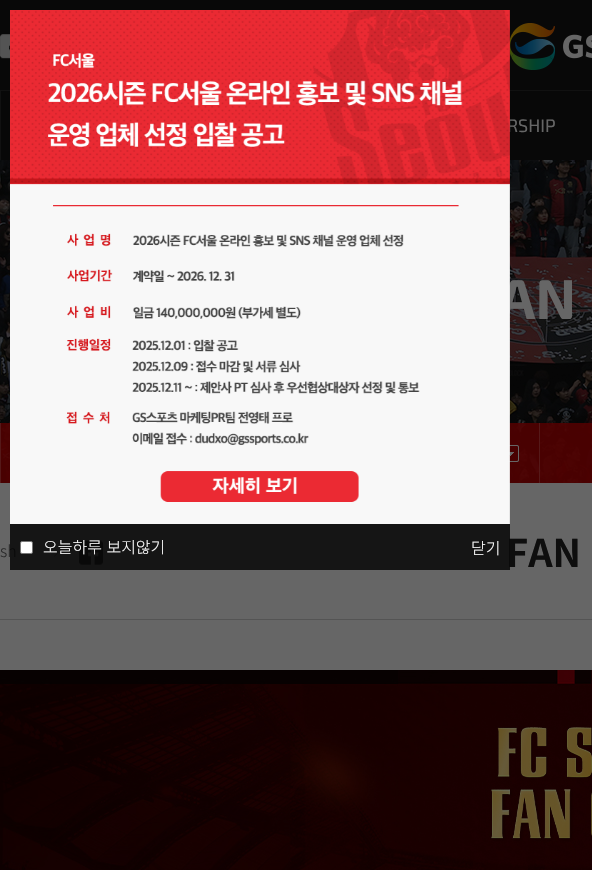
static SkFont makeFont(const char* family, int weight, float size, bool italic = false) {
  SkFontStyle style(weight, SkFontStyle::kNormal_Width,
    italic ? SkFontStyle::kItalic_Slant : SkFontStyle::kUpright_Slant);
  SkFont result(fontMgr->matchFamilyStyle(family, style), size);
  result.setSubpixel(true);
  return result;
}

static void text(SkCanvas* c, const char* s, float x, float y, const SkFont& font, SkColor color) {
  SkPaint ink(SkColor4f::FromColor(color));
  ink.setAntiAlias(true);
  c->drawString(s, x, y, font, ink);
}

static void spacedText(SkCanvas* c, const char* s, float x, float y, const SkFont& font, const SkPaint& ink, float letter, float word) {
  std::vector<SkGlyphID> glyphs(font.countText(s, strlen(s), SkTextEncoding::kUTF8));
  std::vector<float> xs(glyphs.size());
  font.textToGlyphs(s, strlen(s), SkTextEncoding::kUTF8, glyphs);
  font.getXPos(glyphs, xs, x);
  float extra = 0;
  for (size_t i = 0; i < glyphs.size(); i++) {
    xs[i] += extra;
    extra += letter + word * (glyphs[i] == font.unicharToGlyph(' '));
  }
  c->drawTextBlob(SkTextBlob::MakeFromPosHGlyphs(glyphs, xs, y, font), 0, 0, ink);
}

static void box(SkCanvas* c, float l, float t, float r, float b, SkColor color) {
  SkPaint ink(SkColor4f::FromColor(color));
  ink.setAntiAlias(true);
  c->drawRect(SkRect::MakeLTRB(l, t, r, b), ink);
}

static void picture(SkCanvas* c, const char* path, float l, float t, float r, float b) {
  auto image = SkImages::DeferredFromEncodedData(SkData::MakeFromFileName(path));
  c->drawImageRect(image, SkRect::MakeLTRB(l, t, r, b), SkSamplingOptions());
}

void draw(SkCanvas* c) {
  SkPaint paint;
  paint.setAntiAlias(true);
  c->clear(0xff666666);
  box(c, 0, 0, 592, 160, 0xff080808);
  box(c, 0, 90, 1, 160, 0xff111111);
  box(c, 0, 90, 592, 91, 0xff111111);
  picture(c, "img_01.png", 0, 34, 10, 59);
  picture(c, "img_02.png", 509, 23, 592, 70);
  SkFont face1 = makeFont("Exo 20", 400, 18);
  text(c, "RSHIP", 507, 132, face1, 0xff666666);
  picture(c, "img_03.png", 0, 160, 592, 483);
  SkFont face2 = makeFont("Exo 20", 700, 56);
  text(c, "AN", 499, 319, face2, 0xff666666);
  box(c, 1, 423, 592, 483, 0xe6500000);
  box(c, 0, 423, 1, 483, 0xff551919);
  box(c, 539, 423, 540, 483, 0xff551919);
  picture(c, "img_04.png", 509, 445, 519, 462);
  box(c, 0, 619, 592, 620, 0xff545454);
  SkFont face3 = makeFont("Noto Sans KR", 300, 16);
  text(c, "sh", 0, 557, face3, 0xff292929);
  picture(c, "img_05.png", 54, 547, 59, 557);
  picture(c, "img_06.png", 79, 540, 103, 565);
  SkFont face4 = makeFont("Noto Sans KR", 700, 38);
  paint.setColor(0xff0e0e0e);
  spacedText(c, "FAN", 506, 567, face4, paint, 0, 2);
  picture(c, "img_07.png", 0, 670, 592, 870);
  picture(c, "img_08.png", 10, 10, 510, 524);
  box(c, 10, 524, 510, 570, 0xcc000000);
  paint.setColor(0xffffffff);
  c->drawRoundRect(SkRect::MakeLTRB(20.5f, 541.5f, 32.5f, 553.5f), 1.5f, 1.5f, paint);
  paint.setStyle(SkPaint::kStroke_Style);
  paint.setStrokeWidth(1);
  paint.setColor(0xff767676);
  c->drawRoundRect(SkRect::MakeLTRB(20.5f, 541.5f, 32.5f, 553.5f), 1.5f, 1.5f, paint);
  paint.setStyle(SkPaint::kFill_Style);
  paint.setColor(0xffffffff);
  spacedText(c, "오늘하루 보지않기", 43, 553, face3, paint, 0, 1);
  text(c, "닫기", 471, 554, face3, 0xffffffff);
}
